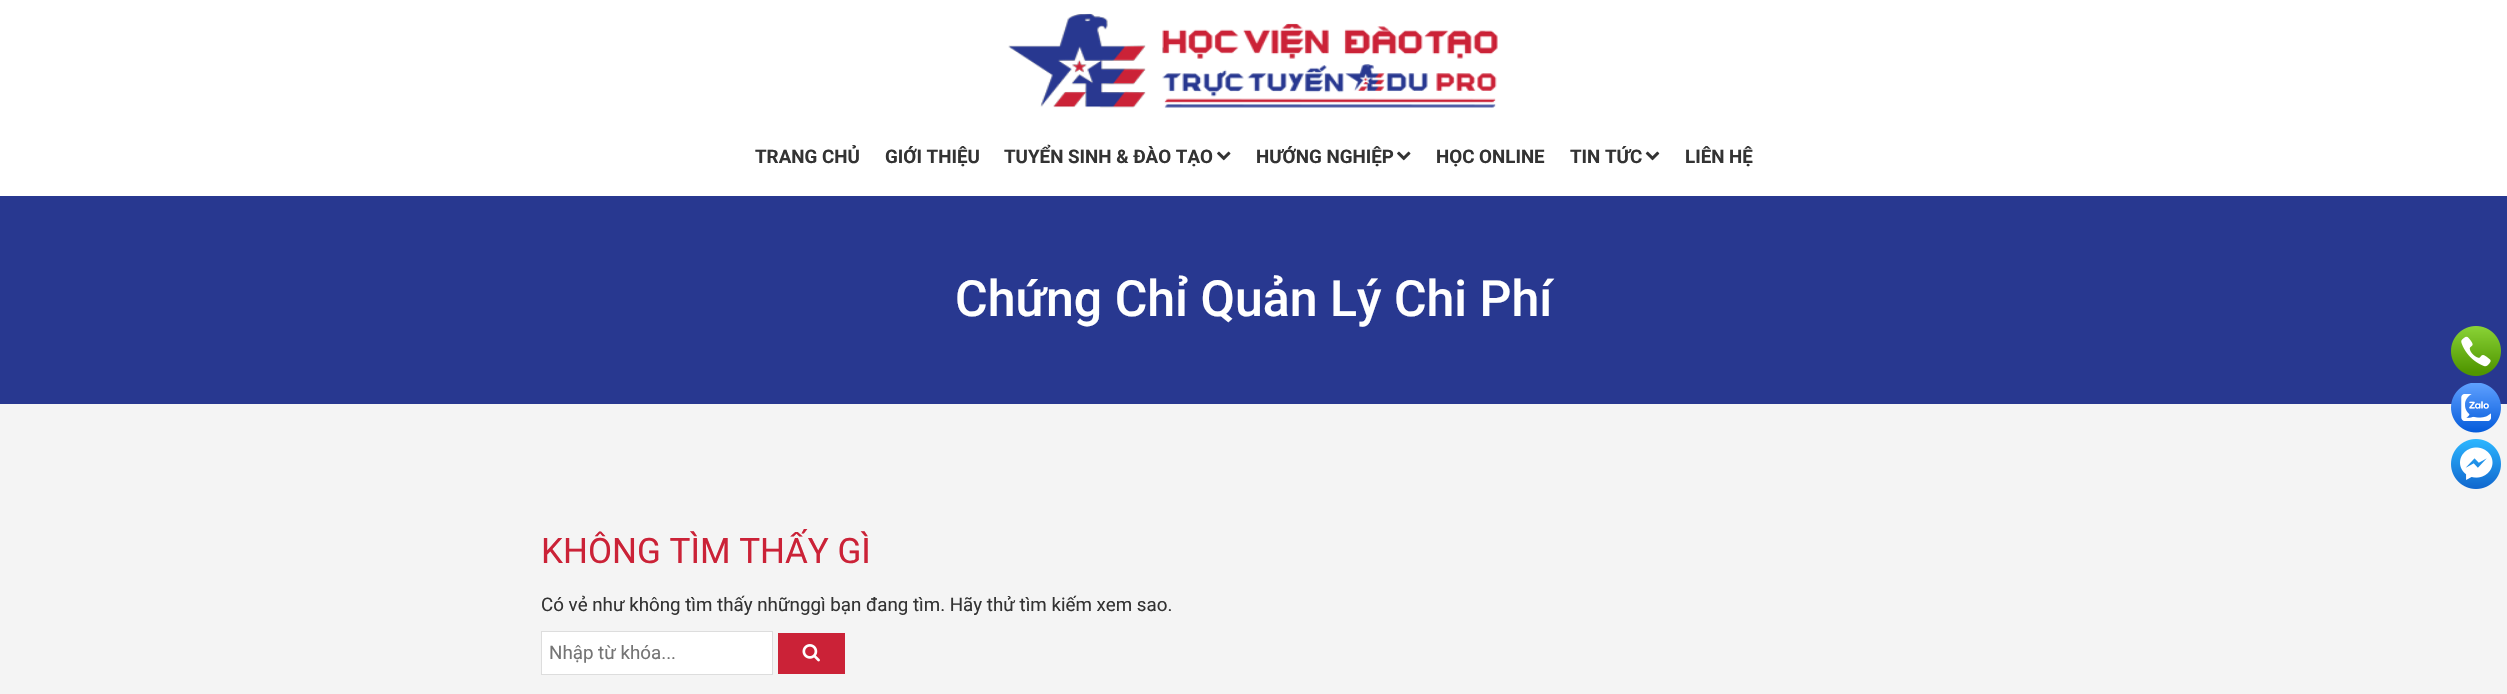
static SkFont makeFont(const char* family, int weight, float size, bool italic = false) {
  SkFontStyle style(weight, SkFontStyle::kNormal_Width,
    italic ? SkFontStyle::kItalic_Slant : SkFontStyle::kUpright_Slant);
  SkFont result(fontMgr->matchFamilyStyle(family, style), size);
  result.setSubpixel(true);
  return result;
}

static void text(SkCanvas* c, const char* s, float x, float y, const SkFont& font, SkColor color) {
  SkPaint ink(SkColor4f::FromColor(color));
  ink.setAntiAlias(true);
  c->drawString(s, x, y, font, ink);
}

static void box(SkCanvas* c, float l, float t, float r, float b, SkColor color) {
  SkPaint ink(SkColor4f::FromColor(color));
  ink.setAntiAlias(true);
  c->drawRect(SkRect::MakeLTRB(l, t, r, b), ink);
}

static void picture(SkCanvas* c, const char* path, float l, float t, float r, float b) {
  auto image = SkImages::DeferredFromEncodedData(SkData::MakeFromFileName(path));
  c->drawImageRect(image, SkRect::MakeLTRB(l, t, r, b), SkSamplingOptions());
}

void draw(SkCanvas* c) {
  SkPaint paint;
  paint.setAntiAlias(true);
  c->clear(0xfff4f4f4);
  box(c, 0, 0, 2507, 196, 0xffffffff);
  picture(c, "img_01.png", 1008, 13, 1498, 108);
  SkFont face1 = makeFont("Roboto", 700, 18.75f);
  text(c, "TRANG CHỦ", 755, 163, face1, 0xff333333);
  text(c, "GIỚI THIỆU", 885, 163, face1, 0xff333333);
  text(c, "TUYỂN SINH & ĐÀO TẠO", 1004, 163, face1, 0xff333333);
  picture(c, "img_02.png", 1217, 151, 1231, 161);
  text(c, "HƯỚNG NGHIỆP", 1256, 163, face1, 0xff333333);
  picture(c, "img_02.png", 1397, 151, 1411, 161);
  text(c, "HỌC ONLINE", 1436, 163, face1, 0xff333333);
  text(c, "TIN TỨC", 1570, 163, face1, 0xff333333);
  picture(c, "img_03.png", 1645, 151, 1660, 161);
  text(c, "LIÊN HỆ", 1685, 163, face1, 0xff333333);
  box(c, 0, 196, 2507, 404, 0xff283890);
  SkFont face2 = makeFont("Roboto", 500, 50);
  text(c, "Chứng Chỉ Quản Lý Chi Phí", 955, 316, face2, 0xffffffff);
  SkFont face3 = makeFont("Roboto", 400, 35);
  text(c, "KHÔNG TÌM THẤY GÌ", 541, 563, face3, 0xffcb2237);
  SkFont face4 = makeFont("Roboto", 400, 18.75f);
  text(c, "Có vẻ như không tìm thấy nhữnggì bạn đang tìm. Hãy thử tìm kiếm xem sao.", 541, 611, face4, 0xff333333);
  paint.setColor(0xffffffff);
  c->drawRect(SkRect::MakeLTRB(541.5f, 631.5f, 772.5f, 674.5f), paint);
  paint.setStyle(SkPaint::kStroke_Style);
  paint.setStrokeWidth(1);
  paint.setColor(0xffdddddd);
  c->drawRect(SkRect::MakeLTRB(541.5f, 631.5f, 772.5f, 674.5f), paint);
  text(c, "Nhập từ khóa...", 549, 659, face4, 0xff757575);
  box(c, 778, 633, 845, 674, 0xffcb2237);
  picture(c, "img_04.png", 802, 644, 820, 662);
  picture(c, "img_05.png", 2451, 326, 2501, 376);
  picture(c, "img_06.png", 2451, 383, 2501, 433);
  picture(c, "img_07.png", 2451, 439, 2501, 489);
}
